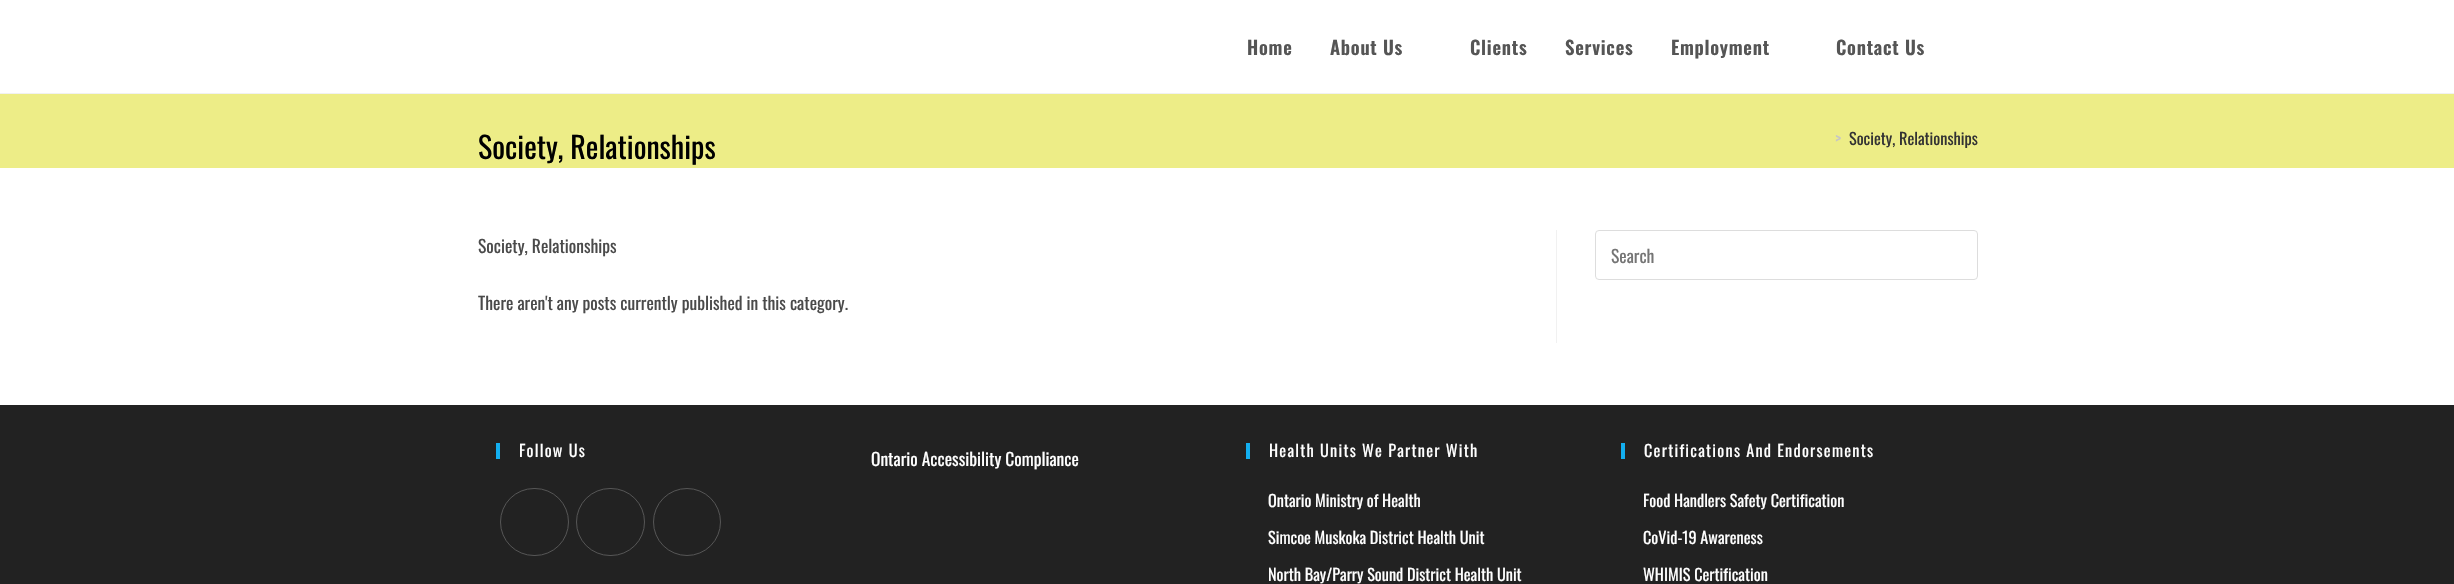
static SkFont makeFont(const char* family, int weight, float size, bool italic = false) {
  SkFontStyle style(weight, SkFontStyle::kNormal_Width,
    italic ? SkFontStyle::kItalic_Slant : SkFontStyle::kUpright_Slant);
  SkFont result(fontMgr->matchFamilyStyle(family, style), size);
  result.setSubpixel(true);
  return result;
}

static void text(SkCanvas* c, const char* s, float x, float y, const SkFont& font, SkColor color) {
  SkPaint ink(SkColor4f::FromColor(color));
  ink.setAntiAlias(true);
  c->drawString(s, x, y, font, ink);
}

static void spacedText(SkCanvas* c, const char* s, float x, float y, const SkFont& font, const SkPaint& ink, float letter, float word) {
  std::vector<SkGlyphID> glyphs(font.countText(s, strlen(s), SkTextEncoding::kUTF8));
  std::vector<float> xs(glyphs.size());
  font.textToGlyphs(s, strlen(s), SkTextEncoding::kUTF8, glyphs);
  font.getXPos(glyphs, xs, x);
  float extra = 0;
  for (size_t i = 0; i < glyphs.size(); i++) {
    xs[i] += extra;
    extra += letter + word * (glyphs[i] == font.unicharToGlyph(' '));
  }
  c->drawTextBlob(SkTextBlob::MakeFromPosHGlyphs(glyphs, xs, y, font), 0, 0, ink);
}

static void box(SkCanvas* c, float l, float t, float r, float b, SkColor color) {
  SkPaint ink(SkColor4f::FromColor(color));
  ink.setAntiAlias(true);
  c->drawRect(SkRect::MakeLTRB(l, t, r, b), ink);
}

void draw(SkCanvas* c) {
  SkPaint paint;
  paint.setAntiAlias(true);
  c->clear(0xffffffff);
  box(c, 0, 93, 2454, 94, 0xfff1f1f1);
  SkFont face1 = makeFont("Oswald", 600, 18.75f);
  paint.setColor(0xff555555);
  spacedText(c, "Home", 1247, 55, face1, paint, 0.75f, 0);
  spacedText(c, "About Us", 1330, 55, face1, paint, 0.75f, 0);
  spacedText(c, "Clients", 1470, 55, face1, paint, 0.75f, 0);
  spacedText(c, "Services", 1565, 55, face1, paint, 0.75f, 0);
  spacedText(c, "Employment", 1671, 55, face1, paint, 0.75f, 0);
  spacedText(c, "Contact Us", 1836, 55, face1, paint, 0.75f, 0);
  box(c, 0, 94, 2454, 168, 0xffeded87);
  SkFont face2 = makeFont("Oswald", 400, 30);
  text(c, "Society, Relationships", 478, 159, face2, 0xff000000);
  SkFont face3 = makeFont("Oswald", 400, 16.25f);
  text(c, ">", 1835, 145, face3, 0xffc6c6c6);
  text(c, "Society, Relationships", 1849, 145, face3, 0xff333333);
  box(c, 1556, 230, 1557, 343, 0xfff1f1f1);
  SkFont face4 = makeFont("Oswald", 400, 17.5f);
  text(c, "Society, Relationships", 478, 253, face4, 0xff4a4a4a);
  text(c, "There aren't any posts currently published in this category.", 478, 310, face4, 0xff4a4a4a);
  paint.setStyle(SkPaint::kStroke_Style);
  paint.setStrokeWidth(1);
  paint.setColor(0xffdddddd);
  c->drawRoundRect(SkRect::MakeLTRB(1595.5f, 230.5f, 1977.5f, 279.5f), 3.5f, 3.5f, paint);
  text(c, "Search", 1611, 263, face4, 0xff757575);
  box(c, 0, 405, 2454, 584, 0xff222222);
  box(c, 496, 443, 500, 459, 0xff13aff0);
  paint.setStyle(SkPaint::kFill_Style);
  paint.setColor(0xffffffff);
  spacedText(c, "Follow Us", 519, 457, face3, paint, 1.25f, 0);
  paint.setStyle(SkPaint::kStroke_Style);
  paint.setColor(0xff555555);
  c->drawRoundRect(SkRect::MakeLTRB(500.5f, 488.5f, 568.5f, 555.5f), 33.5f, 33.5f, paint);
  c->drawRoundRect(SkRect::MakeLTRB(576.5f, 488.5f, 644.5f, 555.5f), 33.5f, 33.5f, paint);
  c->drawCircle(687, 522, 33.5f, paint);
  text(c, "Ontario Accessibility Compliance", 871, 466, face4, 0xffffffff);
  box(c, 1246, 443, 1250, 459, 0xff13aff0);
  paint.setStyle(SkPaint::kFill_Style);
  paint.setColor(0xffffffff);
  spacedText(c, "Health Units We Partner With", 1269, 457, face3, paint, 1.25f, 0);
  text(c, "Ontario Ministry of Health", 1268, 507, face3, 0xffffffff);
  text(c, "Simcoe Muskoka District Health Unit", 1268, 544, face3, 0xffffffff);
  text(c, "North Bay/Parry Sound District Health Unit", 1268, 581, face3, 0xffffffff);
  box(c, 1621, 443, 1625, 459, 0xff13aff0);
  spacedText(c, "Certifications And Endorsements", 1644, 457, face3, paint, 1.25f, 0);
  text(c, "Food Handlers Safety Certification", 1643, 507, face3, 0xffffffff);
  text(c, "CoVid-19 Awareness", 1643, 544, face3, 0xffffffff);
  text(c, "WHIMIS Certification", 1643, 581, face3, 0xffffffff);
}
